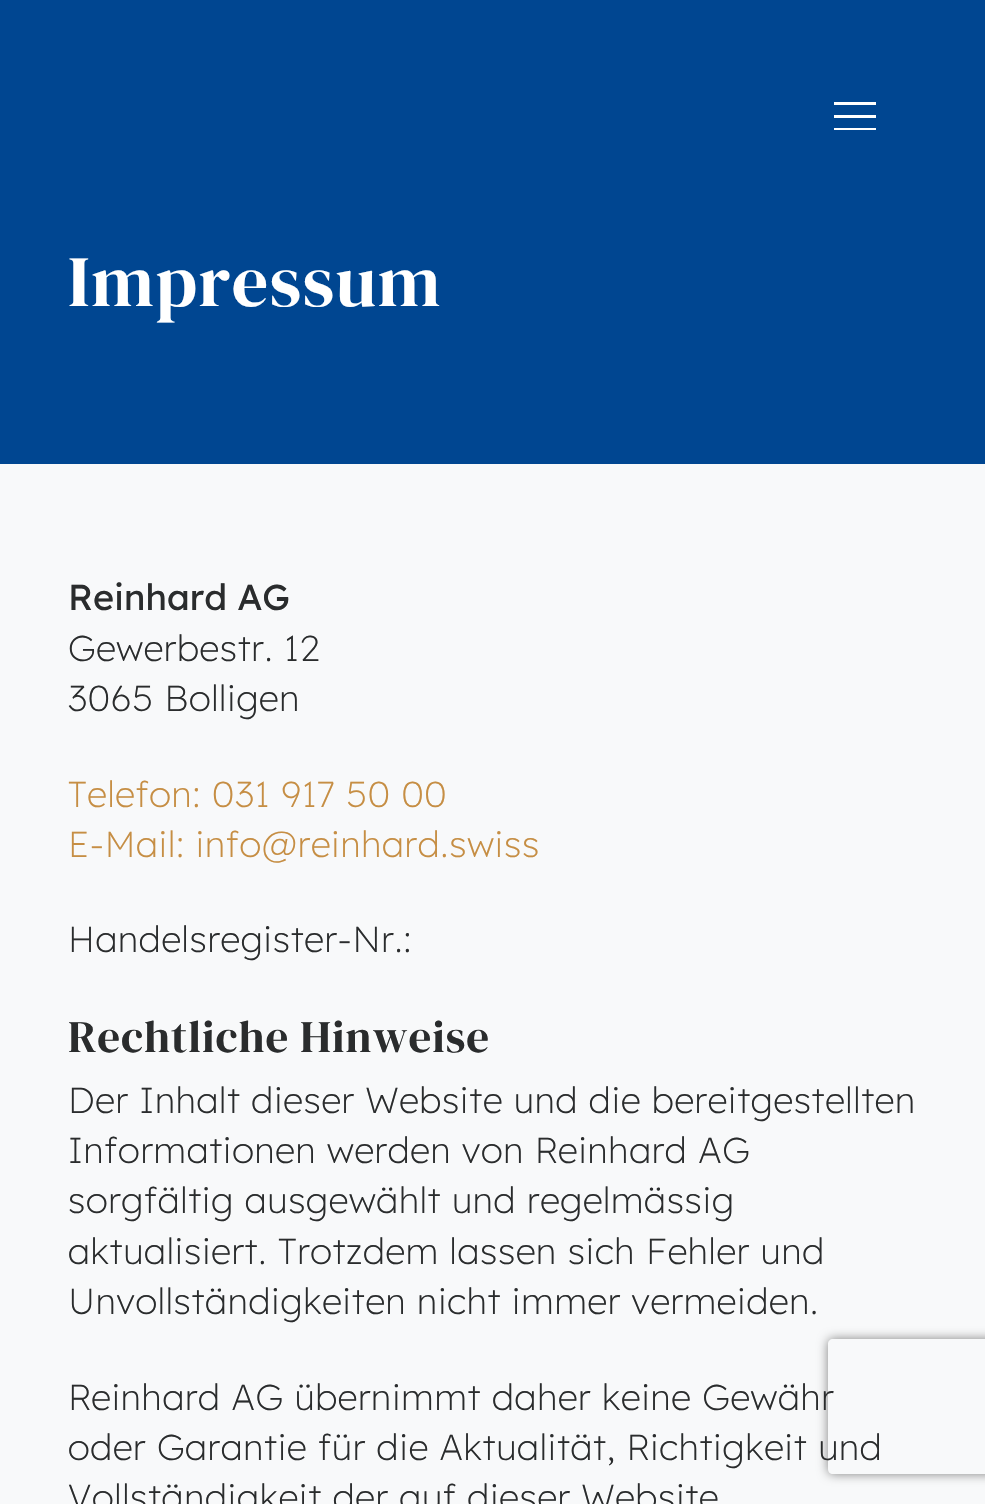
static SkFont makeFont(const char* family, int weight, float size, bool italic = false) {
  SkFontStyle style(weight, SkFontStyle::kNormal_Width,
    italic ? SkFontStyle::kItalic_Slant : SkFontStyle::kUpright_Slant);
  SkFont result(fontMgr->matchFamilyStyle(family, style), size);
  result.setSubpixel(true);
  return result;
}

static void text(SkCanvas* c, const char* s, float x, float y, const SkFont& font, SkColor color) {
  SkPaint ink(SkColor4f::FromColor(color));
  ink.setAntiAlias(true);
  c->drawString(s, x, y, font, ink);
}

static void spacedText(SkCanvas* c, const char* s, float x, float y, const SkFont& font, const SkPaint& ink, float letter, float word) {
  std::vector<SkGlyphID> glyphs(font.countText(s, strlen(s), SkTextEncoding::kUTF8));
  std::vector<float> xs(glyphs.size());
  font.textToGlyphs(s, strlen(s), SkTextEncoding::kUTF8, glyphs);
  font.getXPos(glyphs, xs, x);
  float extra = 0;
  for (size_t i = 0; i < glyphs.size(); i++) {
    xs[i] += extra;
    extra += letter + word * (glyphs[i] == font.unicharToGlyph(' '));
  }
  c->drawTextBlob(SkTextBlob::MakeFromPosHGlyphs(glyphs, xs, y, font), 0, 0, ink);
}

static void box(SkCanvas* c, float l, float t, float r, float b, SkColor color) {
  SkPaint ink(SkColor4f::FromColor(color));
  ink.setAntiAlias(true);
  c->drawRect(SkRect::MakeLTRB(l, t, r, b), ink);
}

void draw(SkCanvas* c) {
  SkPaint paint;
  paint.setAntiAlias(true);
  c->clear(0xfff8f9fa);
  box(c, 0, 0, 985, 464, 0xff004691);
  paint.setColor(0xffffffff);
  c->drawPath(SkPathBuilder().moveTo(834, 130).lineTo(834, 128).lineTo(876, 128).lineTo(876, 130).close().moveTo(834, 118).lineTo(834, 115).lineTo(876, 115).lineTo(876, 118).close().moveTo(834, 105).lineTo(834, 102).lineTo(876, 102).lineTo(876, 105).close().detach(), paint);
  SkFont face1 = makeFont("DM Serif Display", 400, 72);
  spacedText(c, "Impressum", 68, 306, face1, paint, 1.5f, 0);
  SkFont face2 = makeFont("Lexend Deca", 400, 36);
  text(c, "Reinhard AG", 68, 610, face2, 0xff2a2c2d);
  SkFont face3 = makeFont("Lexend Deca", 200, 36);
  paint.setColor(0xff2a2c2d);
  spacedText(c, "Gewerbestr. 12", 68, 661, face3, paint, 0.7f, 0);
  spacedText(c, "3065 Bolligen", 68, 711, face3, paint, 0.7f, 0);
  paint.setColor(0xffc68e44);
  spacedText(c, "Telefon: 031 917 50 00", 68, 807, face3, paint, 0.7f, 0);
  spacedText(c, "E-Mail: info@reinhard.swiss", 68, 857, face3, paint, 0.7f, 0);
  paint.setColor(0xff2a2c2d);
  spacedText(c, "Handelsregister-Nr.:", 68, 952, face3, paint, 0.7f, 0);
  SkFont face4 = makeFont("DM Serif Display", 400, 45);
  spacedText(c, "Rechtliche Hinweise", 68, 1052, face4, paint, 0.9f, 0);
  spacedText(c, "Der Inhalt dieser Website und die bereitgestellten", 68, 1113, face3, paint, 0.7f, 0);
  spacedText(c, "Informationen werden von Reinhard AG", 68, 1163, face3, paint, 0.7f, 0);
  spacedText(c, "sorgfältig ausgewählt und regelmässig", 68, 1213, face3, paint, 0.7f, 0);
  spacedText(c, "aktualisiert. Trotzdem lassen sich Fehler und", 68, 1264, face3, paint, 0.7f, 0);
  c->save();
  c->clipPath(SkPathBuilder(SkPathFillType::kEvenOdd).moveTo(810, 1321).lineTo(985, 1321).lineTo(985, 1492).lineTo(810, 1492).close().moveTo(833, 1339).lineTo(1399, 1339).cubicTo(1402, 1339, 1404, 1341, 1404, 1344).lineTo(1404, 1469).cubicTo(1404, 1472, 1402, 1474, 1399, 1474).lineTo(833, 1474).cubicTo(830, 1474, 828, 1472, 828, 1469).lineTo(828, 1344).cubicTo(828, 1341, 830, 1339, 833, 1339).close().detach(), true);
  paint.setColor(0xff808080);
  paint.setMaskFilter(SkMaskFilter::MakeBlur(kNormal_SkBlurStyle, 5.5f));
  c->drawRoundRect(SkRect::MakeLTRB(828, 1339, 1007, 1474), 5, 5, paint);
  paint.setMaskFilter(nullptr);
  c->restore();
  paint.setColor(0xff2a2c2d);
  spacedText(c, "Unvollständigkeiten nicht immer vermeiden.", 68, 1314, face3, paint, 0.7f, 0);
  spacedText(c, "Reinhard AG übernimmt daher keine Gewähr", 68, 1410, face3, paint, 0.7f, 0);
  spacedText(c, "oder Garantie für die Aktualität, Richtigkeit und", 68, 1460, face3, paint, 0.7f, 0);
  spacedText(c, "Vollständigkeit der auf dieser Website", 68, 1510, face3, paint, 0.7f, 0);
}
